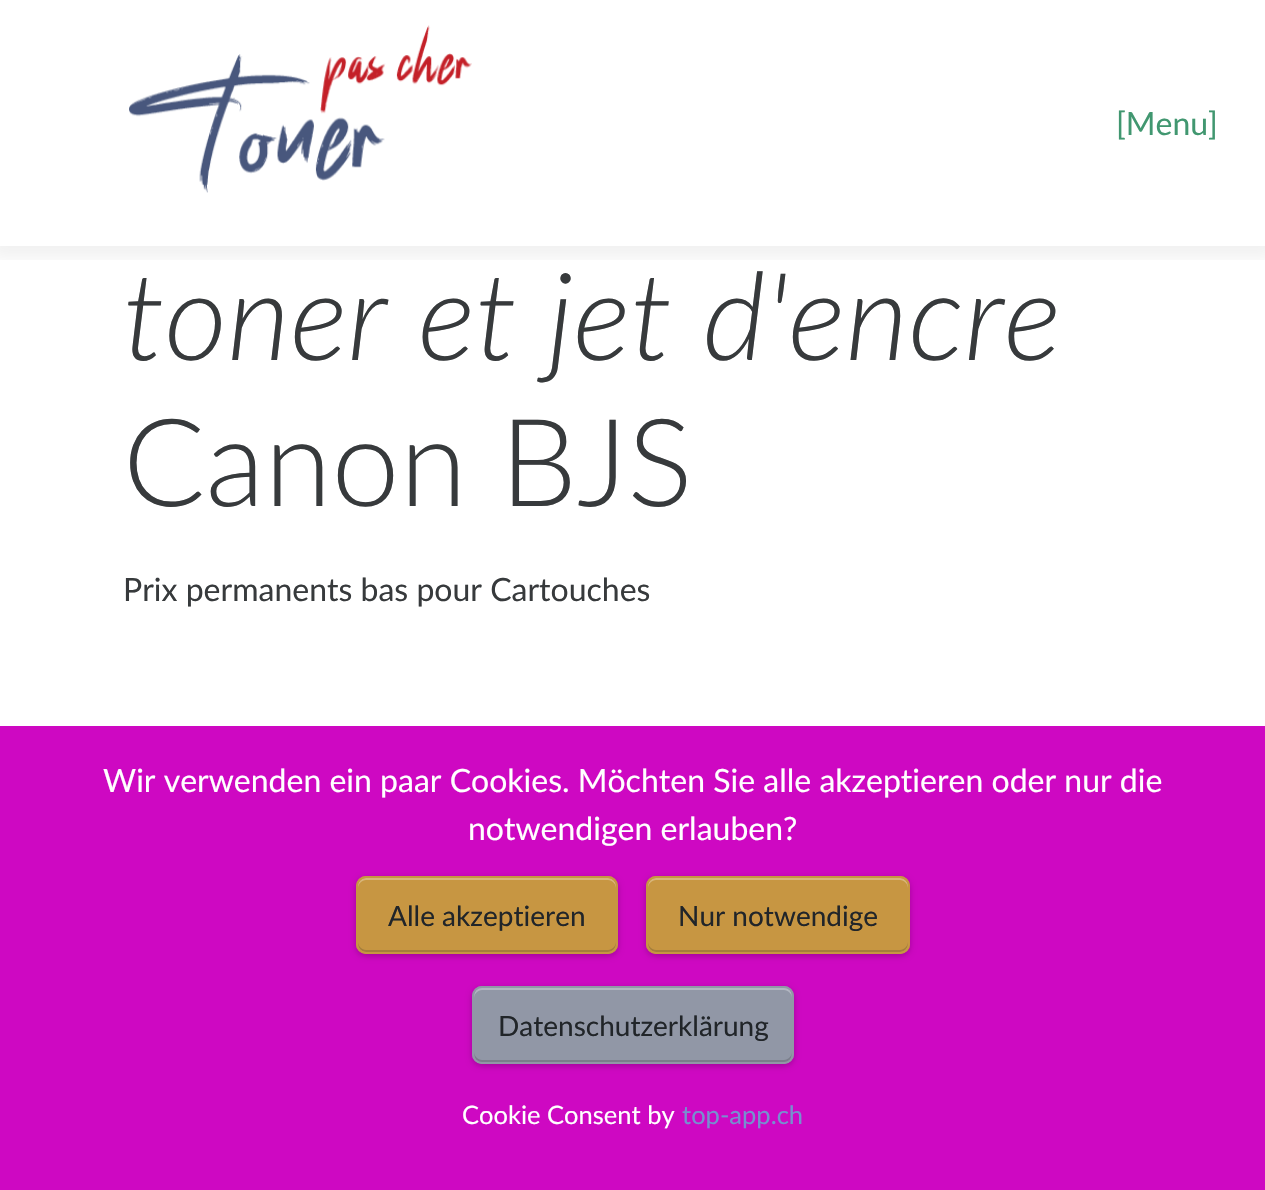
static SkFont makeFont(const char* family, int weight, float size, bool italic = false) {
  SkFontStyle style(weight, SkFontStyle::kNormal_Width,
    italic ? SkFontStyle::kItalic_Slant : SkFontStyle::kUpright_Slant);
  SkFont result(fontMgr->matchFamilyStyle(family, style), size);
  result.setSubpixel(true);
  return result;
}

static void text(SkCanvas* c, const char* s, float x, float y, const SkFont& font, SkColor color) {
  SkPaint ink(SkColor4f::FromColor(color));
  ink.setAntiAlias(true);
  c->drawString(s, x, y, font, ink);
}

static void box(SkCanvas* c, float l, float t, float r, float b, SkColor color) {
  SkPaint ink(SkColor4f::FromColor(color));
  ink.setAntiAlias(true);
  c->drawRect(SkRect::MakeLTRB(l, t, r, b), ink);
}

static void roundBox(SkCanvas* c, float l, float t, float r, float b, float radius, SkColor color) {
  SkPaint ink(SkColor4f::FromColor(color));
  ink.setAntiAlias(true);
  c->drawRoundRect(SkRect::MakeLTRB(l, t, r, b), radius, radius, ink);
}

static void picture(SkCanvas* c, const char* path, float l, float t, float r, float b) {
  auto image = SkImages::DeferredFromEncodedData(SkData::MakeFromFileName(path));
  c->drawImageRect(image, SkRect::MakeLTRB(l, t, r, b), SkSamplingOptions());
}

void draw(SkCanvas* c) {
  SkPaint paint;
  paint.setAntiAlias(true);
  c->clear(0xffffffff);
  c->save();
  c->clipRect(SkRect::MakeLTRB(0, 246, 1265, 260));
  paint.setColor(0x0d000000);
  paint.setMaskFilter(SkMaskFilter::MakeBlur(kNormal_SkBlurStyle, 7));
  c->drawRect(SkRect::MakeLTRB(-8, -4, 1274, 258), paint);
  paint.setMaskFilter(nullptr);
  c->restore();
  picture(c, "img_01.png", 129, 25, 472, 193);
  SkFont face1 = makeFont("Lato", 400, 32);
  text(c, "[Menu]", 1116, 135, face1, 0xff419770);
  SkFont face2 = makeFont("Lato", 300, 122, true);
  text(c, "toner et jet d'encre", 123, 360, face2, 0xff373a3c);
  SkFont face3 = makeFont("Lato", 300, 122);
  text(c, "Canon BJS", 123, 506, face3, 0xff373a3c);
  text(c, "Prix permanents bas pour Cartouches", 123, 601, face1, 0xff373a3c);
  box(c, 0, 726, 1265, 1190, 0xffce08c2);
  text(c, "Wir verwenden ein paar Cookies. Möchten Sie alle akzeptieren oder nur die", 103, 792, face1, 0xffffffff);
  text(c, "notwendigen erlauben?", 468, 840, face1, 0xffffffff);
  paint.setColor(0x38000000);
  paint.setMaskFilter(SkMaskFilter::MakeBlur(kNormal_SkBlurStyle, 3));
  c->drawRoundRect(SkRect::MakeLTRB(356, 878, 618, 956), 10, 10, paint);
  paint.setMaskFilter(nullptr);
  roundBox(c, 356, 876, 618, 954, 10, 0xffc79642);
  paint.setColor(0xffa47e3c);
  c->drawPath(SkPathBuilder().moveTo(358, 942).lineTo(358, 944).cubicTo(358, 948, 362, 952, 366, 952).lineTo(608, 952).cubicTo(612, 952, 616, 948, 616, 944).lineTo(616, 942).cubicTo(616, 946, 612, 950, 608, 950).lineTo(366, 950).cubicTo(362, 950, 358, 946, 358, 942).close().detach(), paint);
  paint.setColor(0xffd8b67b);
  c->drawPath(SkPathBuilder().moveTo(366, 880).lineTo(608, 880).cubicTo(612, 880, 616, 884, 616, 888).lineTo(616, 886).cubicTo(616, 882, 612, 878, 608, 878).lineTo(366, 878).cubicTo(362, 878, 358, 882, 358, 886).lineTo(358, 888).cubicTo(358, 884, 362, 880, 366, 880).close().detach(), paint);
  paint.setStyle(SkPaint::kStroke_Style);
  paint.setStrokeWidth(2);
  paint.setColor(0xffc79642);
  c->drawRoundRect(SkRect::MakeLTRB(357, 877, 617, 953), 9, 9, paint);
  SkFont face4 = makeFont("Lato", 400, 28);
  text(c, "Alle akzeptieren", 388, 926, face4, 0xff212529);
  paint.setStyle(SkPaint::kFill_Style);
  paint.setColor(0x38000000);
  paint.setMaskFilter(SkMaskFilter::MakeBlur(kNormal_SkBlurStyle, 3));
  c->drawRoundRect(SkRect::MakeLTRB(646, 878, 910, 956), 10, 10, paint);
  paint.setMaskFilter(nullptr);
  roundBox(c, 646, 876, 910, 954, 10, 0xffc79642);
  paint.setColor(0xffa47e3c);
  c->drawPath(SkPathBuilder().moveTo(648, 942).lineTo(648, 944).cubicTo(648, 948, 652, 952, 656, 952).lineTo(900, 952).cubicTo(904, 952, 908, 948, 908, 944).lineTo(908, 942).cubicTo(908, 946, 904, 950, 900, 950).lineTo(656, 950).cubicTo(652, 950, 648, 946, 648, 942).close().detach(), paint);
  paint.setColor(0xffd8b67b);
  c->drawPath(SkPathBuilder().moveTo(656, 880).lineTo(900, 880).cubicTo(904, 880, 908, 884, 908, 888).lineTo(908, 886).cubicTo(908, 882, 904, 878, 900, 878).lineTo(656, 878).cubicTo(652, 878, 648, 882, 648, 886).lineTo(648, 888).cubicTo(648, 884, 652, 880, 656, 880).close().detach(), paint);
  paint.setStyle(SkPaint::kStroke_Style);
  paint.setColor(0xffc79642);
  c->drawRoundRect(SkRect::MakeLTRB(647, 877, 909, 953), 9, 9, paint);
  text(c, "Nur notwendige", 678, 926, face4, 0xff212529);
  paint.setStyle(SkPaint::kFill_Style);
  paint.setColor(0x38000000);
  paint.setMaskFilter(SkMaskFilter::MakeBlur(kNormal_SkBlurStyle, 3));
  c->drawRoundRect(SkRect::MakeLTRB(472, 988, 794, 1066), 10, 10, paint);
  paint.setMaskFilter(nullptr);
  roundBox(c, 472, 986, 794, 1064, 10, 0xff9197a6);
  paint.setColor(0xff7a7e8a);
  c->drawPath(SkPathBuilder().moveTo(474, 1052).cubicTo(474, 1056, 475, 1061, 480, 1062).lineTo(786, 1062).cubicTo(791, 1061, 792, 1056, 792, 1052).cubicTo(792, 1056, 788, 1060, 784, 1060).lineTo(482, 1060).cubicTo(478, 1060, 474, 1056, 474, 1052).close().detach(), paint);
  paint.setColor(0xffb2b6c1);
  c->drawPath(SkPathBuilder().moveTo(482, 990).lineTo(784, 990).cubicTo(788, 990, 792, 994, 792, 998).cubicTo(792, 994, 791, 989, 786, 988).lineTo(480, 988).cubicTo(475, 989, 474, 994, 474, 998).cubicTo(474, 994, 478, 990, 482, 990).close().detach(), paint);
  paint.setStyle(SkPaint::kStroke_Style);
  paint.setColor(0xff9197a6);
  c->drawRoundRect(SkRect::MakeLTRB(473, 987, 793, 1063), 9, 9, paint);
  text(c, "Datenschutzerklärung", 498, 1036, face4, 0xff212529);
  SkFont face5 = makeFont("Lato", 400, 25.5f);
  text(c, "Cookie Consent by", 462, 1124, face5, 0xffffffff);
  text(c, "top-app.ch", 682, 1124, face5, 0xff7690cf);
}
